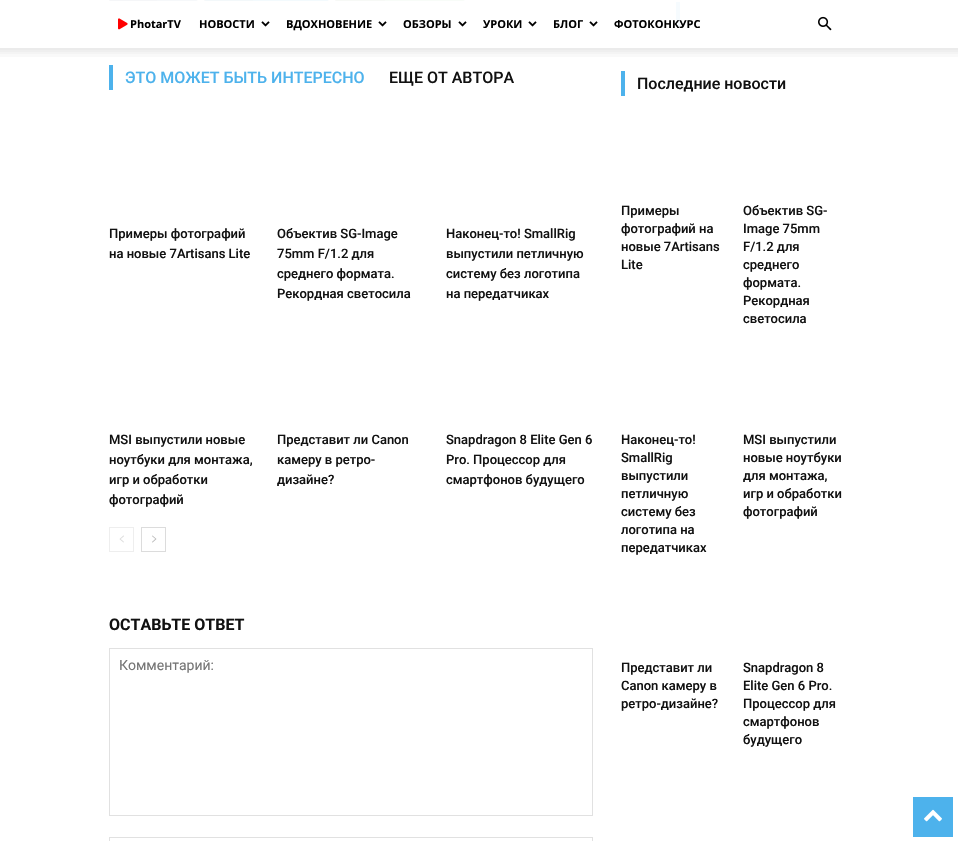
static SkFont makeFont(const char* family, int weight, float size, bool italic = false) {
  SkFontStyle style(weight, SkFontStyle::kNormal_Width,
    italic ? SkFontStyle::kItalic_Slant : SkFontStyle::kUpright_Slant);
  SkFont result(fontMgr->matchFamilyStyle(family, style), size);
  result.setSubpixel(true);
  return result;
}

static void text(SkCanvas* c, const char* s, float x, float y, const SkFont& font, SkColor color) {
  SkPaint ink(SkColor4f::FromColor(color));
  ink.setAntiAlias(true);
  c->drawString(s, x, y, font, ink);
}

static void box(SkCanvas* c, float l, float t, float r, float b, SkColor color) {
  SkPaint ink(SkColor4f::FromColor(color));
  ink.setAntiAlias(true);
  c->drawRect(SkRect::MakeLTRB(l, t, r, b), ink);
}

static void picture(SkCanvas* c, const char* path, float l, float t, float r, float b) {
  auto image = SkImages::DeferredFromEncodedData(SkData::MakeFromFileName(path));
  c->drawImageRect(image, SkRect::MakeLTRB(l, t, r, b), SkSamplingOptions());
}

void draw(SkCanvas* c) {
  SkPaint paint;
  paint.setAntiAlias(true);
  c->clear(0xffffffff);
  box(c, 335, 0, 337, 1, 0xfffbfbfb);
  box(c, 204, 0, 206, 1, 0xfffbfbfb);
  box(c, 109, 0, 111, 1, 0xfffbfbfb);
  picture(c, "img_01.png", 118, 18, 128, 30);
  SkFont face1 = makeFont("Open Sans", 700, 11);
  text(c, "PhotarTV", 130, 28, face1, 0xff000000);
  text(c, "НОВОСТИ", 199, 28, face1, 0xff000000);
  picture(c, "img_02.png", 261, 21, 270, 27);
  text(c, "ВДОХНОВЕНИЕ", 286, 28, face1, 0xff000000);
  picture(c, "img_02.png", 378, 21, 387, 27);
  text(c, "ОБЗОРЫ", 403, 28, face1, 0xff000000);
  picture(c, "img_02.png", 458, 21, 467, 27);
  text(c, "УРОКИ", 483, 28, face1, 0xff000000);
  picture(c, "img_02.png", 528, 21, 537, 27);
  text(c, "БЛОГ", 553, 28, face1, 0xff000000);
  picture(c, "img_03.png", 589, 21, 598, 27);
  box(c, 676, 2, 680, 27, 0xfff6fbfe);
  text(c, "ФОТОКОНКУРС", 614, 28, face1, 0xff000000);
  picture(c, "img_04.png", 818, 16, 832, 31);
  picture(c, "img_05.png", 0, 48, 958, 57);
  paint.setColor(0xfff6f8fa);
  c->drawPath(SkPathBuilder().moveTo(151, -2).lineTo(196, -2).cubicTo(197, -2, 198, -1, 198, 0).lineTo(198, -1).cubicTo(198, 0, 197, 1, 196, 1).lineTo(151, 1).close().detach(), paint);
  paint.setColor(0xfff5f6f8);
  c->drawPath(SkPathBuilder().moveTo(111, -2).lineTo(157, -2).lineTo(157, 1).lineTo(111, 1).cubicTo(110, 1, 109, 0, 109, -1).lineTo(109, 0).cubicTo(109, -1, 110, -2, 111, -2).close().detach(), paint);
  paint.setColor(0xfff3fafd);
  c->drawPath(SkPathBuilder().moveTo(247, -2).lineTo(327, -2).cubicTo(328, -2, 329, -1, 329, 0).lineTo(329, -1).cubicTo(329, 0, 328, 1, 327, 1).lineTo(247, 1).close().detach(), paint);
  paint.setColor(0xfff3f8fa);
  c->drawPath(SkPathBuilder().moveTo(206, -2).lineTo(253, -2).lineTo(253, 1).lineTo(206, 1).cubicTo(205, 1, 204, 0, 204, -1).lineTo(204, 0).cubicTo(204, -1, 205, -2, 206, -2).close().detach(), paint);
  paint.setColor(0xfff8fcf8);
  c->drawPath(SkPathBuilder().moveTo(379, -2).lineTo(463, -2).cubicTo(464, -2, 465, -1, 465, 0).lineTo(465, -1).cubicTo(465, 0, 464, 1, 463, 1).lineTo(379, 1).close().detach(), paint);
  paint.setColor(0xfff7f9f6);
  c->drawPath(SkPathBuilder().moveTo(337, -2).lineTo(385, -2).lineTo(385, 1).lineTo(337, 1).cubicTo(336, 1, 335, 0, 335, -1).lineTo(335, 0).cubicTo(335, -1, 336, -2, 337, -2).close().detach(), paint);
  box(c, 109, 65, 113, 90, 0xff4db2ec);
  SkFont face2 = makeFont("Roboto", 500, 16);
  text(c, "ЭТО МОЖЕТ БЫТЬ ИНТЕРЕСНО", 125, 83, face2, 0xff4db2ec);
  text(c, "ЕЩЕ ОТ АВТОРА", 389, 83, face2, 0xff111111);
  SkFont face3 = makeFont("Roboto", 500, 13);
  text(c, "Примеры фотографий", 109, 238, face3, 0xff111111);
  text(c, "на новые 7Artisans Lite", 109, 258, face3, 0xff111111);
  text(c, "Объектив SG-Image", 277, 238, face3, 0xff111111);
  text(c, "75mm F/1.2 для", 277, 258, face3, 0xff111111);
  text(c, "среднего формата.", 277, 278, face3, 0xff111111);
  text(c, "Рекордная светосила", 277, 298, face3, 0xff111111);
  text(c, "Наконец-то! SmallRig", 446, 238, face3, 0xff111111);
  text(c, "выпустили петличную", 446, 258, face3, 0xff111111);
  text(c, "систему без логотипа", 446, 278, face3, 0xff111111);
  text(c, "на передатчиках", 446, 298, face3, 0xff111111);
  text(c, "MSI выпустили новые", 109, 444, face3, 0xff111111);
  text(c, "ноутбуки для монтажа,", 109, 464, face3, 0xff111111);
  text(c, "игр и обработки", 109, 484, face3, 0xff111111);
  text(c, "фотографий", 109, 504, face3, 0xff111111);
  text(c, "Представит ли Canon", 277, 444, face3, 0xff111111);
  text(c, "камеру в ретро-", 277, 464, face3, 0xff111111);
  text(c, "дизайне?", 277, 484, face3, 0xff111111);
  text(c, "Snapdragon 8 Elite Gen 6", 446, 444, face3, 0xff111111);
  text(c, "Pro. Процессор для", 446, 464, face3, 0xff111111);
  text(c, "смартфонов будущего", 446, 484, face3, 0xff111111);
  paint.setStyle(SkPaint::kStroke_Style);
  paint.setStrokeWidth(1);
  paint.setColor(0xffeeeeee);
  c->drawRect(SkRect::MakeLTRB(109.5f, 527.5f, 133.5f, 551.5f), paint);
  picture(c, "img_06.png", 119, 535, 124, 543);
  paint.setColor(0xffdcdcdc);
  c->drawRect(SkRect::MakeLTRB(141.5f, 527.5f, 165.5f, 551.5f), paint);
  picture(c, "img_07.png", 152, 535, 157, 543);
  SkFont face4 = makeFont("Roboto", 700, 16);
  text(c, "ОСТАВЬТЕ ОТВЕТ", 109, 630, face4, 0xff111111);
  paint.setColor(0xffe1e1e1);
  c->drawRect(SkRect::MakeLTRB(109.5f, 648.5f, 592.5f, 815.5f), paint);
  SkFont face5 = makeFont("Roboto", 400, 14);
  text(c, "Комментарий:", 119, 670, face5, 0xff757575);
  c->drawRect(SkRect::MakeLTRB(109.5f, 837.5f, 592.5f, 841.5f), paint);
  box(c, 621, 71, 625, 96, 0xff4db2ec);
  text(c, "Последние новости", 637, 89, face2, 0xff111111);
  text(c, "Примеры", 621, 215, face3, 0xff111111);
  text(c, "фотографий на", 621, 233, face3, 0xff111111);
  text(c, "новые 7Artisans", 621, 251, face3, 0xff111111);
  text(c, "Lite", 621, 269, face3, 0xff111111);
  text(c, "Объектив SG-", 743, 215, face3, 0xff111111);
  text(c, "Image 75mm", 743, 233, face3, 0xff111111);
  text(c, "F/1.2 для", 743, 251, face3, 0xff111111);
  text(c, "среднего", 743, 269, face3, 0xff111111);
  text(c, "формата.", 743, 287, face3, 0xff111111);
  text(c, "Рекордная", 743, 305, face3, 0xff111111);
  text(c, "светосила", 743, 323, face3, 0xff111111);
  text(c, "Наконец-то!", 621, 444, face3, 0xff111111);
  text(c, "SmallRig", 621, 462, face3, 0xff111111);
  text(c, "выпустили", 621, 480, face3, 0xff111111);
  text(c, "петличную", 621, 498, face3, 0xff111111);
  text(c, "систему без", 621, 516, face3, 0xff111111);
  text(c, "логотипа на", 621, 534, face3, 0xff111111);
  text(c, "передатчиках", 621, 552, face3, 0xff111111);
  text(c, "MSI выпустили", 743, 444, face3, 0xff111111);
  text(c, "новые ноутбуки", 743, 462, face3, 0xff111111);
  text(c, "для монтажа,", 743, 480, face3, 0xff111111);
  text(c, "игр и обработки", 743, 498, face3, 0xff111111);
  text(c, "фотографий", 743, 516, face3, 0xff111111);
  text(c, "Представит ли", 621, 672, face3, 0xff111111);
  text(c, "Canon камеру в", 621, 690, face3, 0xff111111);
  text(c, "ретро-дизайне?", 621, 708, face3, 0xff111111);
  text(c, "Snapdragon 8", 743, 672, face3, 0xff111111);
  text(c, "Elite Gen 6 Pro.", 743, 690, face3, 0xff111111);
  text(c, "Процессор для", 743, 708, face3, 0xff111111);
  text(c, "смартфонов", 743, 726, face3, 0xff111111);
  text(c, "будущего", 743, 744, face3, 0xff111111);
  box(c, 913, 797, 953, 837, 0xff4db2ec);
  picture(c, "img_08.png", 924, 809, 942, 822);
}
